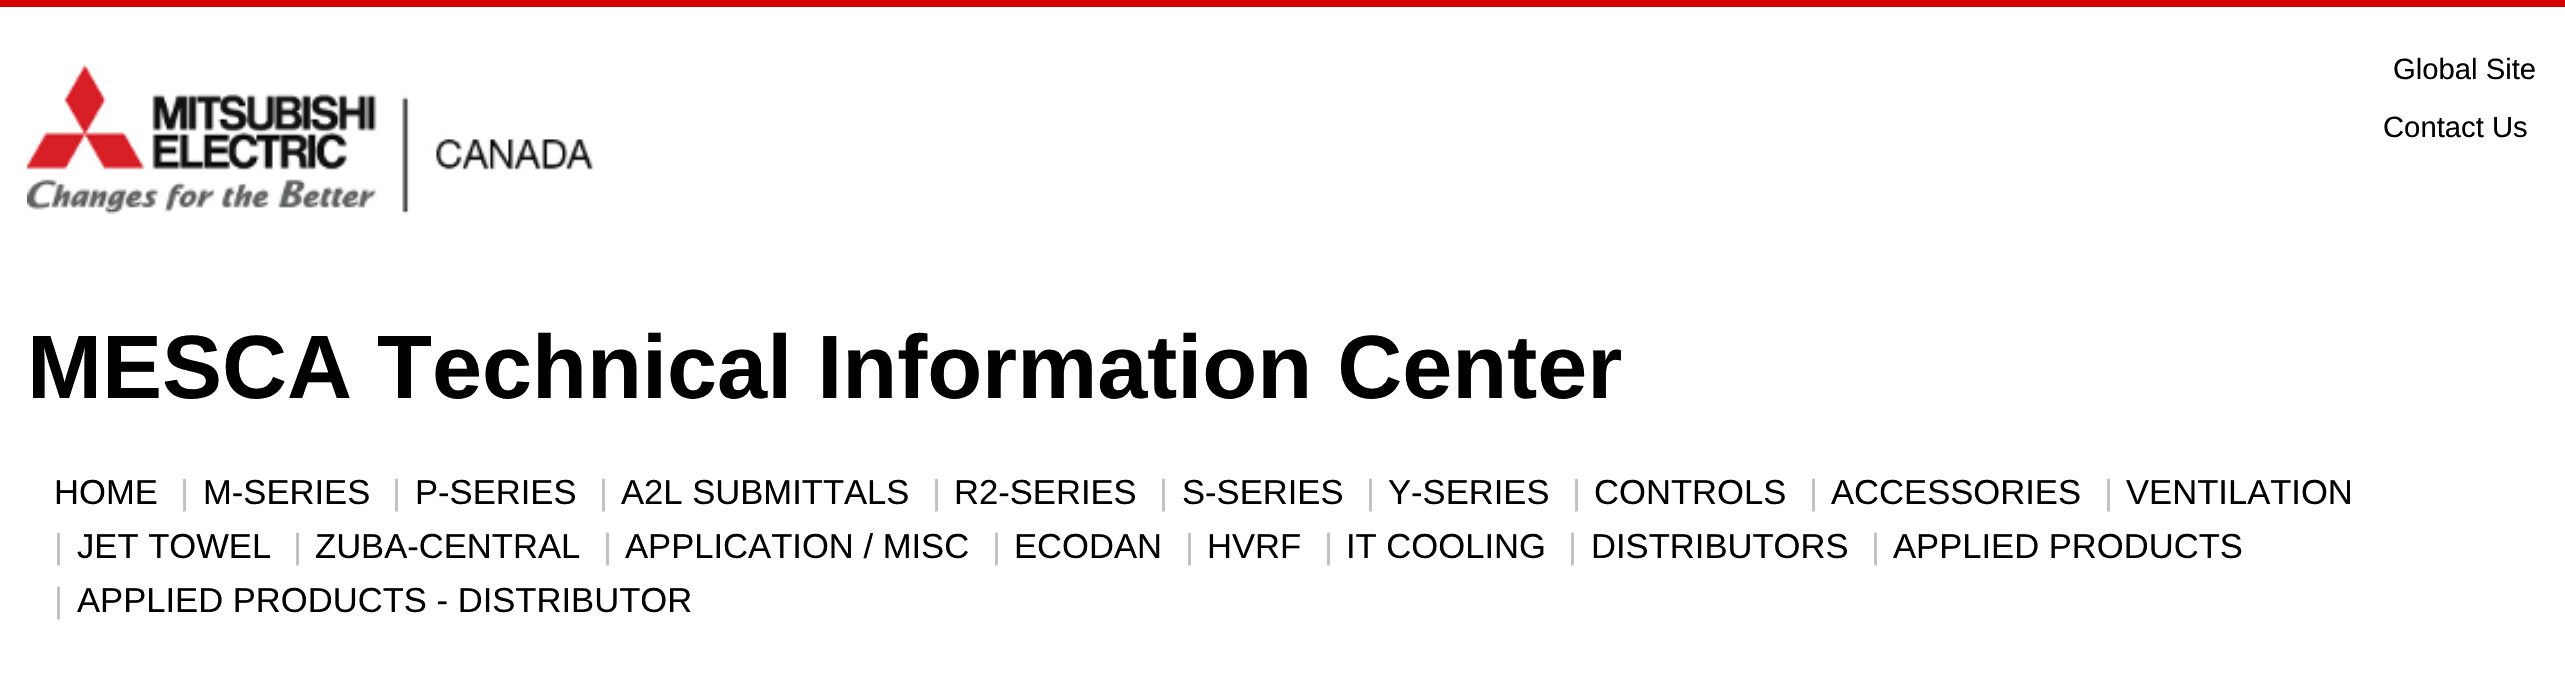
static SkFont makeFont(const char* family, int weight, float size, bool italic = false) {
  SkFontStyle style(weight, SkFontStyle::kNormal_Width,
    italic ? SkFontStyle::kItalic_Slant : SkFontStyle::kUpright_Slant);
  SkFont result(fontMgr->matchFamilyStyle(family, style), size);
  result.setSubpixel(true);
  return result;
}

static void text(SkCanvas* c, const char* s, float x, float y, const SkFont& font, SkColor color) {
  SkPaint ink(SkColor4f::FromColor(color));
  ink.setAntiAlias(true);
  c->drawString(s, x, y, font, ink);
}

static void box(SkCanvas* c, float l, float t, float r, float b, SkColor color) {
  SkPaint ink(SkColor4f::FromColor(color));
  ink.setAntiAlias(true);
  c->drawRect(SkRect::MakeLTRB(l, t, r, b), ink);
}

static void picture(SkCanvas* c, const char* path, float l, float t, float r, float b) {
  auto image = SkImages::DeferredFromEncodedData(SkData::MakeFromFileName(path));
  c->drawImageRect(image, SkRect::MakeLTRB(l, t, r, b), SkSamplingOptions());
}

void draw(SkCanvas* c) {
  SkPaint paint;
  paint.setAntiAlias(true);
  c->clear(0xffffffff);
  box(c, 0, 0, 2565, 7, 0xffd40000);
  picture(c, "img_01.png", 27, 64, 594, 215);
  SkFont face1 = makeFont("Liberation Sans", 400, 29.25f);
  text(c, "Global Site", 2393, 79, face1, 0xff000000);
  text(c, "Contact Us", 2383, 137, face1, 0xff000000);
  SkFont face2 = makeFont("Liberation Sans", 700, 90);
  text(c, "MESCA Technical Information Center", 27, 398, face2, 0xff000000);
  SkFont face3 = makeFont("Liberation Sans", 400, 34.6f);
  text(c, "HOME", 54, 504, face3, 0xff000000);
  text(c, "|", 180, 504, face3, 0xffc0c0c0);
  text(c, "M-SERIES", 203, 504, face3, 0xff000000);
  text(c, "|", 392, 504, face3, 0xffc0c0c0);
  text(c, "P-SERIES", 415, 504, face3, 0xff000000);
  text(c, "|", 599, 504, face3, 0xffc0c0c0);
  text(c, "A2L SUBMITTALS", 621, 504, face3, 0xff000000);
  text(c, "|", 932, 504, face3, 0xffc0c0c0);
  text(c, "R2-SERIES", 954, 504, face3, 0xff000000);
  text(c, "|", 1159, 504, face3, 0xffc0c0c0);
  text(c, "S-SERIES", 1182, 504, face3, 0xff000000);
  text(c, "|", 1366, 504, face3, 0xffc0c0c0);
  text(c, "Y-SERIES", 1388, 504, face3, 0xff000000);
  text(c, "|", 1572, 504, face3, 0xffc0c0c0);
  text(c, "CONTROLS", 1594, 504, face3, 0xff000000);
  text(c, "|", 1809, 504, face3, 0xffc0c0c0);
  text(c, "ACCESSORIES", 1831, 504, face3, 0xff000000);
  text(c, "|", 2104, 504, face3, 0xffc0c0c0);
  text(c, "VENTILATION", 2126, 504, face3, 0xff000000);
  text(c, "|", 54, 558, face3, 0xffc0c0c0);
  text(c, "JET TOWEL", 77, 558, face3, 0xff000000);
  text(c, "|", 293, 558, face3, 0xffc0c0c0);
  text(c, "ZUBA-CENTRAL", 315, 558, face3, 0xff000000);
  text(c, "|", 603, 558, face3, 0xffc0c0c0);
  text(c, "APPLICATION / MISC", 625, 558, face3, 0xff000000);
  text(c, "|", 992, 558, face3, 0xffc0c0c0);
  text(c, "ECODAN", 1014, 558, face3, 0xff000000);
  text(c, "|", 1185, 558, face3, 0xffc0c0c0);
  text(c, "HVRF", 1207, 558, face3, 0xff000000);
  text(c, "|", 1324, 558, face3, 0xffc0c0c0);
  text(c, "IT COOLING", 1346, 558, face3, 0xff000000);
  text(c, "|", 1568, 558, face3, 0xffc0c0c0);
  text(c, "DISTRIBUTORS", 1591, 558, face3, 0xff000000);
  text(c, "|", 1871, 558, face3, 0xffc0c0c0);
  text(c, "APPLIED PRODUCTS", 1893, 558, face3, 0xff000000);
  text(c, "|", 54, 612, face3, 0xffc0c0c0);
  text(c, "APPLIED PRODUCTS - DISTRIBUTOR", 77, 612, face3, 0xff000000);
}
